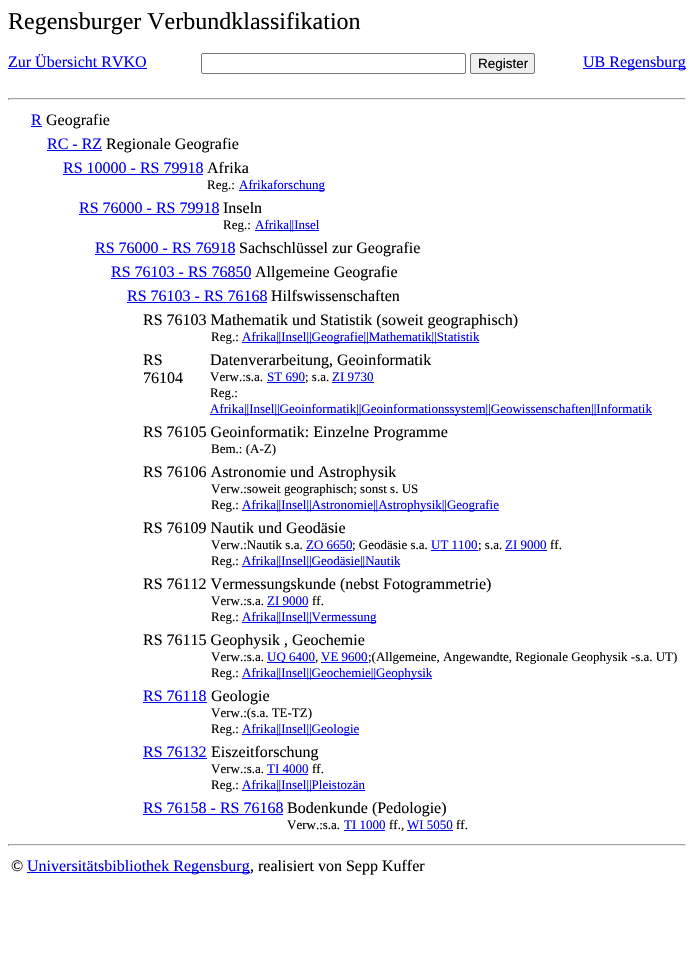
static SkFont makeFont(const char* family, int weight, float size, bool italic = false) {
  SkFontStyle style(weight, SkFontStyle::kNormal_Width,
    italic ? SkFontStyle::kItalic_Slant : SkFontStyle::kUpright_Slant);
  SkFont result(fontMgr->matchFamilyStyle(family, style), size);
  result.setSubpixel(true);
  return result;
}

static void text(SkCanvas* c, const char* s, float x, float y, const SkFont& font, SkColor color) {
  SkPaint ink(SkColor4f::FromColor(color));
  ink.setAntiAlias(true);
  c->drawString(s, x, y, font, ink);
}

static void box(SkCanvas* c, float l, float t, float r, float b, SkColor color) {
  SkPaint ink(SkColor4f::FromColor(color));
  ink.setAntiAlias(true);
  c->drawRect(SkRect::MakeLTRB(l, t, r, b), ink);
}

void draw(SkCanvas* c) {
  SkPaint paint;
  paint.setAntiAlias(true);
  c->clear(0xffffffff);
  SkFont face1 = makeFont("Liberation Serif", 400, 24);
  text(c, "Regensburger Verbundklassifikation", 8, 29, face1, 0xff000000);
  SkFont face2 = makeFont("Liberation Serif", 400, 16);
  text(c, "Zur Übersicht RVKO", 8, 67, face2, 0xff0000ee);
  box(c, 8, 68, 147, 69, 0xff0000ee);
  paint.setStyle(SkPaint::kStroke_Style);
  paint.setStrokeWidth(1);
  paint.setColor(0xff767676);
  c->drawRoundRect(SkRect::MakeLTRB(201.5f, 53.5f, 465.5f, 73.5f), 1.5f, 1.5f, paint);
  paint.setStyle(SkPaint::kFill_Style);
  paint.setColor(0xffefefef);
  c->drawRoundRect(SkRect::MakeLTRB(470.5f, 53.5f, 534.5f, 73.5f), 1.5f, 1.5f, paint);
  paint.setStyle(SkPaint::kStroke_Style);
  paint.setColor(0xff767676);
  c->drawRoundRect(SkRect::MakeLTRB(470.5f, 53.5f, 534.5f, 73.5f), 1.5f, 1.5f, paint);
  SkFont face3 = makeFont("Liberation Sans", 400, 13.5f);
  text(c, "Register", 478, 68, face3, 0xff000000);
  box(c, 583, 68, 686, 69, 0xff0000ee);
  text(c, "UB Regensburg", 583, 67, face2, 0xff0000ee);
  box(c, 8, 98, 686, 99, 0xff9f9f9f);
  box(c, 685, 98, 686, 100, 0xffeeeeee);
  box(c, 8, 99, 686, 100, 0xffeeeeee);
  box(c, 8, 98, 9, 100, 0xff9f9f9f);
  text(c, "R", 31, 125, face2, 0xff0000ee);
  box(c, 31, 126, 42, 127, 0xff0000ee);
  text(c, "Geografie", 46, 125, face2, 0xff000000);
  text(c, "RC - RZ", 47, 149, face2, 0xff0000ee);
  box(c, 47, 150, 102, 151, 0xff0000ee);
  text(c, "Regionale Geografie", 106, 149, face2, 0xff000000);
  text(c, "RS 10000 - RS 79918", 63, 173, face2, 0xff0000ee);
  box(c, 63, 174, 203, 175, 0xff0000ee);
  text(c, "Afrika", 207, 173, face2, 0xff000000);
  SkFont face4 = makeFont("Liberation Serif", 400, 13);
  text(c, "Reg.:", 207, 189, face4, 0xff000000);
  box(c, 239, 190, 324, 191, 0xff0000ee);
  text(c, "Afrikaforschung", 239, 189, face4, 0xff0000ee);
  text(c, "RS 76000 - RS 79918", 79, 213, face2, 0xff0000ee);
  box(c, 79, 214, 219, 215, 0xff0000ee);
  text(c, "Inseln", 223, 213, face2, 0xff000000);
  text(c, "Reg.:", 223, 229, face4, 0xff000000);
  box(c, 255, 230, 319, 231, 0xff0000ee);
  text(c, "Afrika||Insel", 255, 229, face4, 0xff0000ee);
  text(c, "RS 76000 - RS 76918", 95, 253, face2, 0xff0000ee);
  box(c, 95, 254, 235, 255, 0xff0000ee);
  text(c, "Sachschlüssel zur Geografie", 239, 253, face2, 0xff000000);
  text(c, "RS 76103 - RS 76850", 111, 277, face2, 0xff0000ee);
  box(c, 111, 278, 251, 279, 0xff0000ee);
  text(c, "Allgemeine Geografie", 255, 277, face2, 0xff000000);
  text(c, "RS 76103 - RS 76168", 127, 301, face2, 0xff0000ee);
  box(c, 127, 302, 267, 303, 0xff0000ee);
  text(c, "Hilfswissenschaften", 271, 301, face2, 0xff000000);
  text(c, "RS 76103 Mathematik und Statistik (soweit geographisch)", 143, 325, face2, 0xff000000);
  text(c, "Reg.:", 211, 341, face4, 0xff000000);
  box(c, 242, 342, 479, 343, 0xff0000ee);
  text(c, "Afrika||Insel||Geografie||Mathematik||Statistik", 242, 341, face4, 0xff0000ee);
  text(c, "RS", 143, 365, face2, 0xff000000);
  text(c, "76104", 143, 383, face2, 0xff000000);
  text(c, "Datenverarbeitung, Geoinformatik", 210, 365, face2, 0xff000000);
  text(c, "Verw.:s.a.", 210, 381, face4, 0xff000000);
  text(c, "ST 690", 267, 381, face4, 0xff0000ee);
  text(c, "; s.a.", 305, 381, face4, 0xff000000);
  box(c, 267, 382, 305, 383, 0xff0000ee);
  text(c, "ZI 9730", 332, 381, face4, 0xff0000ee);
  box(c, 332, 382, 374, 383, 0xff0000ee);
  text(c, "Reg.:", 210, 397, face4, 0xff000000);
  box(c, 210, 414, 652, 415, 0xff0000ee);
  text(c, "Afrika||Insel||Geoinformatik||Geoinformationssystem||Geowissenschaften||Informatik", 210, 413, face4, 0xff0000ee);
  text(c, "RS 76105 Geoinformatik: Einzelne Programme", 143, 437, face2, 0xff000000);
  text(c, "Bem.: (A-Z)", 211, 453, face4, 0xff000000);
  text(c, "RS 76106 Astronomie und Astrophysik", 143, 477, face2, 0xff000000);
  text(c, "Verw.:soweit geographisch; sonst s. US", 211, 493, face4, 0xff000000);
  text(c, "Reg.:", 211, 509, face4, 0xff000000);
  box(c, 242, 510, 499, 511, 0xff0000ee);
  text(c, "Afrika||Insel||Astronomie||Astrophysik||Geografie", 242, 509, face4, 0xff0000ee);
  text(c, "RS 76109 Nautik und Geodäsie", 143, 533, face2, 0xff000000);
  text(c, "Verw.:Nautik s.a.", 211, 549, face4, 0xff000000);
  text(c, "ZO 6650", 306, 549, face4, 0xff0000ee);
  text(c, "; Geodäsie s.a.", 352, 549, face4, 0xff000000);
  box(c, 306, 550, 352, 551, 0xff0000ee);
  text(c, "UT 1100", 431, 549, face4, 0xff0000ee);
  text(c, "; s.a.", 478, 549, face4, 0xff000000);
  box(c, 431, 550, 478, 551, 0xff0000ee);
  box(c, 505, 550, 547, 551, 0xff0000ee);
  text(c, "ZI 9000", 505, 549, face4, 0xff0000ee);
  text(c, "ff.", 550, 549, face4, 0xff000000);
  text(c, "Reg.:", 211, 565, face4, 0xff000000);
  box(c, 242, 566, 400, 567, 0xff0000ee);
  text(c, "Afrika||Insel||Geodäsie||Nautik", 242, 565, face4, 0xff0000ee);
  text(c, "RS 76112 Vermessungskunde (nebst Fotogrammetrie)", 143, 589, face2, 0xff000000);
  text(c, "Verw.:s.a.", 211, 605, face4, 0xff000000);
  text(c, "ZI 9000", 267, 605, face4, 0xff0000ee);
  box(c, 267, 606, 308, 607, 0xff0000ee);
  text(c, "ff.", 312, 605, face4, 0xff000000);
  text(c, "Reg.:", 211, 621, face4, 0xff000000);
  box(c, 242, 622, 376, 623, 0xff0000ee);
  text(c, "Afrika||Insel||Vermessung", 242, 621, face4, 0xff0000ee);
  text(c, "RS 76115 Geophysik , Geochemie", 143, 645, face2, 0xff000000);
  text(c, "Verw.:s.a.", 211, 661, face4, 0xff000000);
  box(c, 267, 662, 315, 663, 0xff0000ee);
  text(c, "UQ 6400", 267, 661, face4, 0xff0000ee);
  text(c, ",", 315, 661, face4, 0xff000000);
  box(c, 321, 662, 368, 663, 0xff0000ee);
  text(c, "VE 9600", 321, 661, face4, 0xff0000ee);
  text(c, ";(Allgemeine, Angewandte, Regionale Geophysik -s.a. UT)", 368, 661, face4, 0xff000000);
  text(c, "Reg.:", 211, 677, face4, 0xff000000);
  box(c, 242, 678, 432, 679, 0xff0000ee);
  text(c, "Afrika||Insel||Geochemie||Geophysik", 242, 677, face4, 0xff0000ee);
  text(c, "RS 76118", 143, 701, face2, 0xff0000ee);
  box(c, 143, 702, 207, 703, 0xff0000ee);
  text(c, "Geologie", 211, 701, face2, 0xff000000);
  text(c, "Verw.:(s.a. TE-TZ)", 211, 717, face4, 0xff000000);
  text(c, "Reg.:", 211, 733, face4, 0xff000000);
  box(c, 242, 734, 359, 735, 0xff0000ee);
  text(c, "Afrika||Insel||Geologie", 242, 733, face4, 0xff0000ee);
  text(c, "RS 76132", 143, 757, face2, 0xff0000ee);
  box(c, 143, 758, 207, 759, 0xff0000ee);
  text(c, "Eiszeitforschung", 211, 757, face2, 0xff000000);
  text(c, "Verw.:s.a.", 211, 773, face4, 0xff000000);
  text(c, "TI 4000", 267, 773, face4, 0xff0000ee);
  box(c, 267, 774, 308, 775, 0xff0000ee);
  text(c, "ff.", 312, 773, face4, 0xff000000);
  text(c, "Reg.:", 211, 789, face4, 0xff000000);
  box(c, 242, 790, 365, 791, 0xff0000ee);
  text(c, "Afrika||Insel||Pleistozän", 242, 789, face4, 0xff0000ee);
  text(c, "RS 76158 - RS 76168", 143, 813, face2, 0xff0000ee);
  box(c, 143, 814, 283, 815, 0xff0000ee);
  text(c, "Bodenkunde (Pedologie)", 287, 813, face2, 0xff000000);
  text(c, "Verw.:s.a.", 287, 829, face4, 0xff000000);
  text(c, "TI 1000", 344, 829, face4, 0xff0000ee);
  box(c, 344, 830, 385, 831, 0xff0000ee);
  text(c, "ff.,", 389, 829, face4, 0xff000000);
  text(c, "WI 5050", 407, 829, face4, 0xff0000ee);
  box(c, 407, 830, 453, 831, 0xff0000ee);
  text(c, "ff.", 456, 829, face4, 0xff000000);
  box(c, 8, 844, 686, 845, 0xff9f9f9f);
  box(c, 685, 844, 686, 846, 0xffeeeeee);
  box(c, 8, 845, 686, 846, 0xffeeeeee);
  box(c, 8, 844, 9, 846, 0xff9f9f9f);
  text(c, "©", 11, 871, face2, 0xff000000);
  box(c, 27, 872, 250, 873, 0xff0000ee);
  text(c, "Universitätsbibliothek Regensburg", 27, 871, face2, 0xff0000ee);
  text(c, ", realisiert von Sepp Kuffer", 250, 871, face2, 0xff000000);
}
